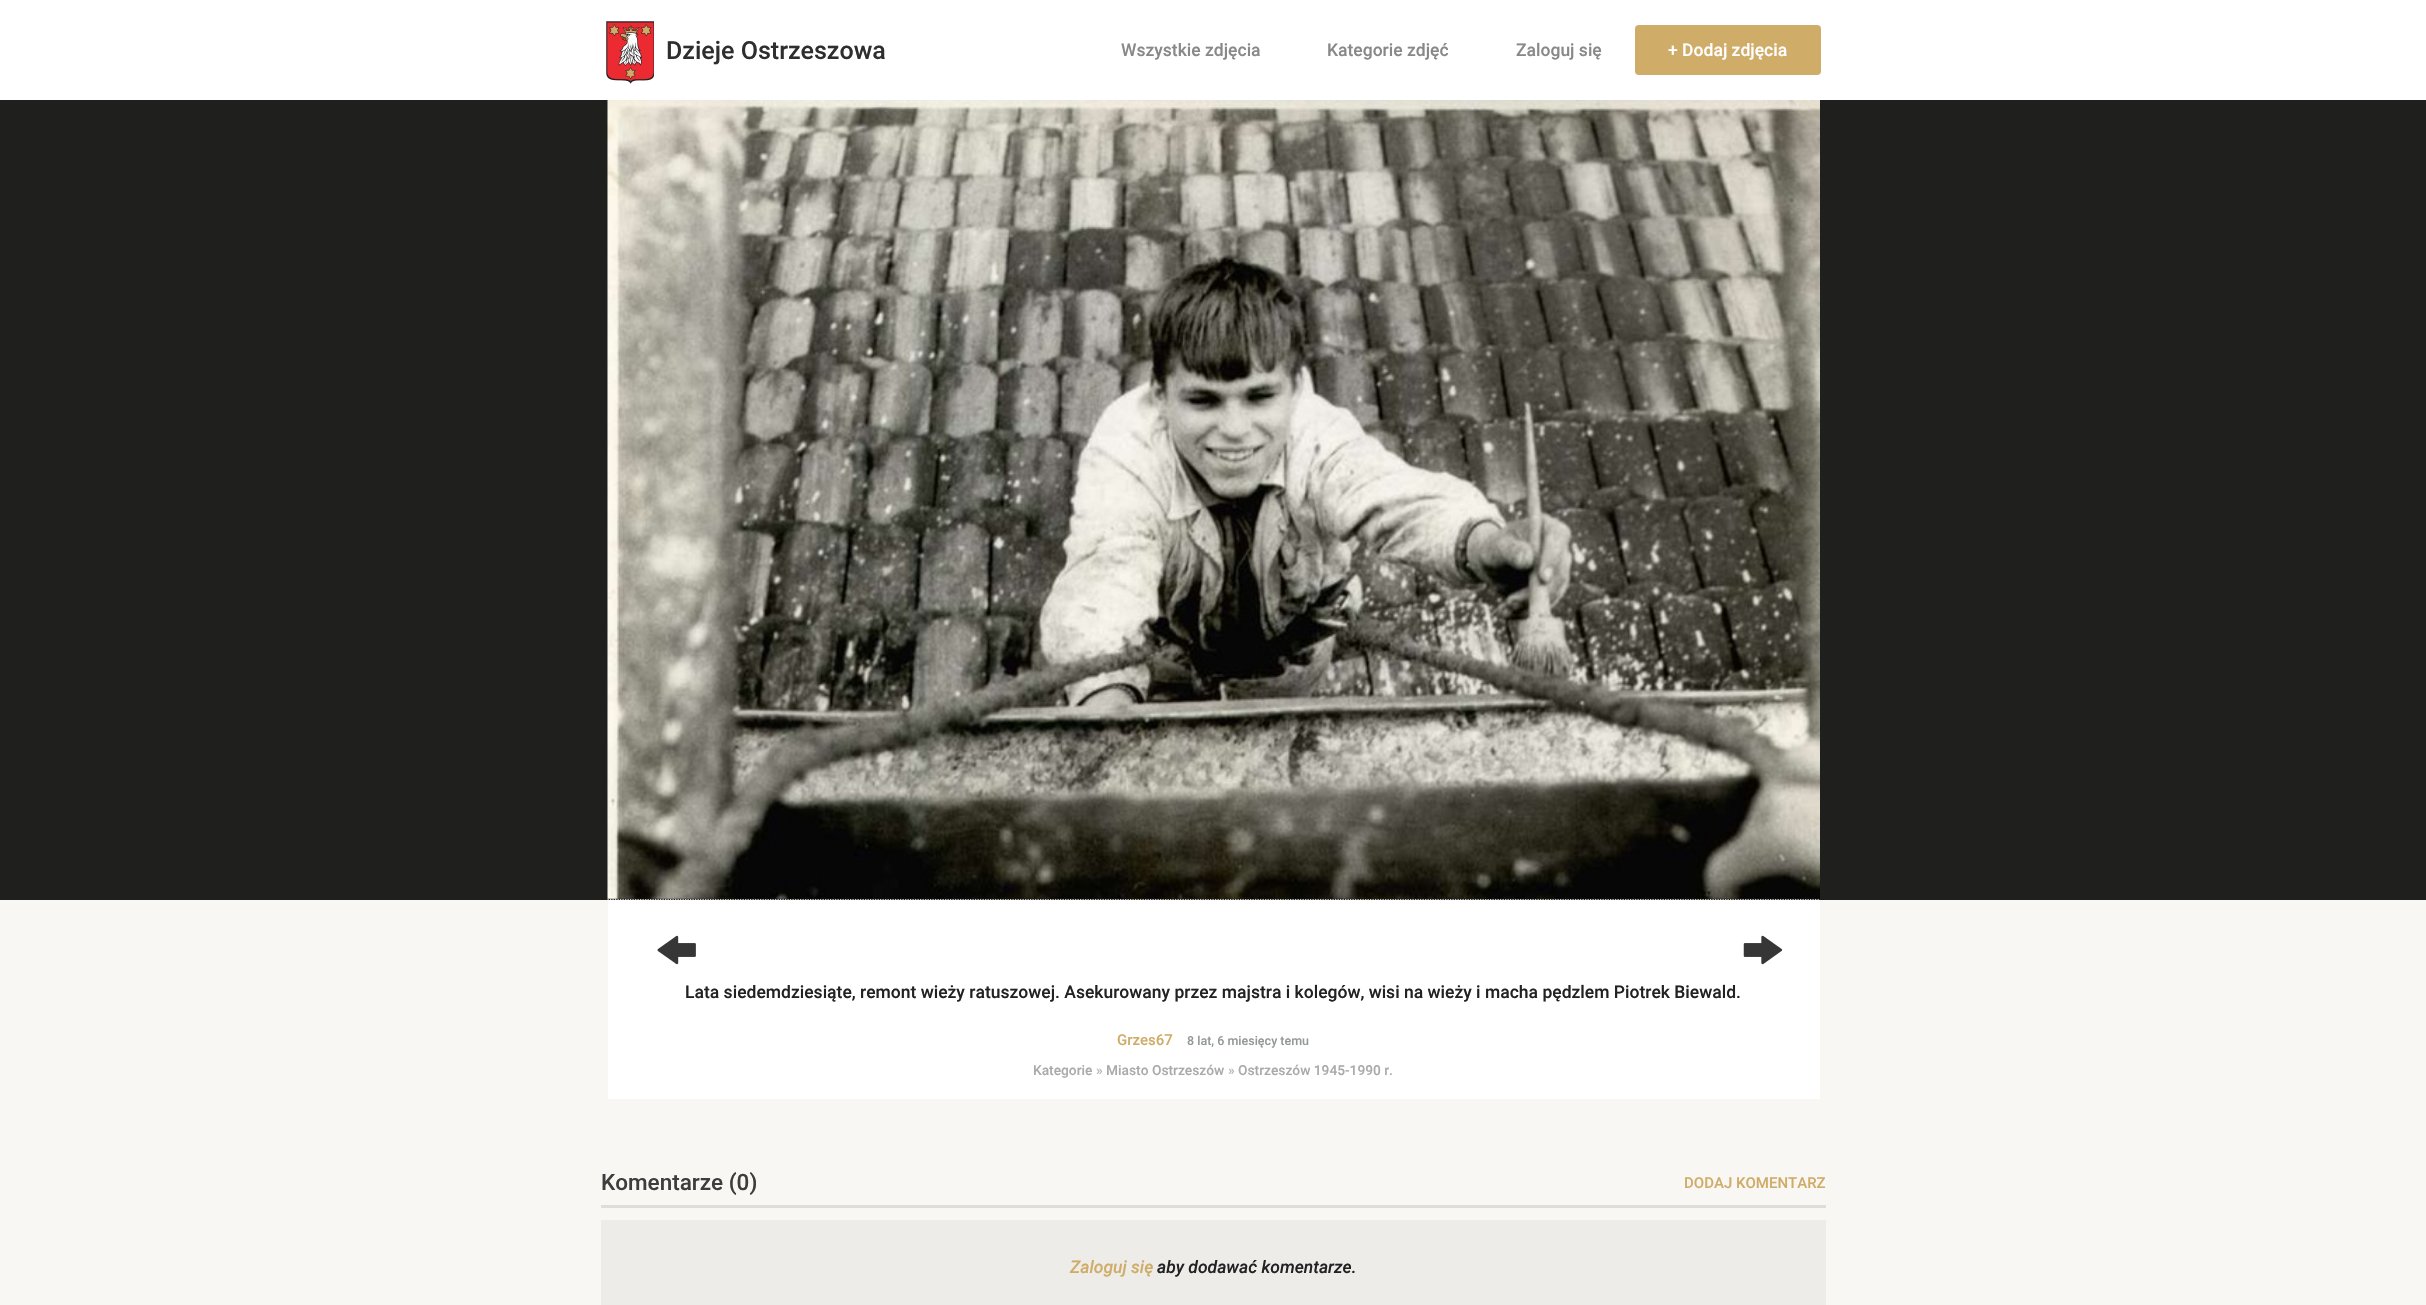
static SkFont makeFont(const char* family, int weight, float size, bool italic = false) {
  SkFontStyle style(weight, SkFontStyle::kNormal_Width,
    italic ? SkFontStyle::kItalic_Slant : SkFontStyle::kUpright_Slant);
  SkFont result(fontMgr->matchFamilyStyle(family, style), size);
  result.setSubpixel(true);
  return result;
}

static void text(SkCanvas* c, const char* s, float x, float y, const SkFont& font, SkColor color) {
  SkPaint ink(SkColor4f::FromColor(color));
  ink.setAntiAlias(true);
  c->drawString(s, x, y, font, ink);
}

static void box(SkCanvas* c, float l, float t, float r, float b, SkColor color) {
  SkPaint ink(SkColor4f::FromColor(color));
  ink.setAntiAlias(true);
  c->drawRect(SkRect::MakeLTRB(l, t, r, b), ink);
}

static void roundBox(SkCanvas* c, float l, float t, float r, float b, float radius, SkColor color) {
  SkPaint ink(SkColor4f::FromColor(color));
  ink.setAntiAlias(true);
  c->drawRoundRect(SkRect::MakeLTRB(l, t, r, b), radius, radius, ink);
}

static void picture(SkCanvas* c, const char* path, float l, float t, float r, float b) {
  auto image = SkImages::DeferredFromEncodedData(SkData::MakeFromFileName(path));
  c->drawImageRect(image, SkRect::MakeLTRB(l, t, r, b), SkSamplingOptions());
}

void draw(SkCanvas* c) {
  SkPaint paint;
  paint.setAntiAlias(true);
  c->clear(0xfff8f7f3);
  box(c, 0, 0, 2426, 100, 0xffffffff);
  picture(c, "img_01.png", 606, 21, 654, 84);
  SkFont face1 = makeFont("Roboto", 500, 25);
  text(c, "Dzieje Ostrzeszowa", 666, 59, face1, 0xff2e2e2e);
  SkFont face2 = makeFont("Roboto", 500, 17.5f);
  text(c, "Wszystkie zdjęcia", 1121, 56, face2, 0xff888888);
  text(c, "Kategorie zdjęć", 1327, 56, face2, 0xff888888);
  text(c, "Zaloguj się", 1516, 56, face2, 0xff888888);
  roundBox(c, 1635, 25, 1821, 75, 4, 0xffd0ac69);
  text(c, "+ Dodaj zdjęcia", 1668, 56, face2, 0xffffffff);
  box(c, 0, 100, 2426, 900, 0xff1f1f1e);
  paint.setStyle(SkPaint::kStroke_Style);
  paint.setStrokeWidth(1.2f);
  paint.setColor(0xffcccccc);
  paint.setPathEffect(SkDashPathEffect::Make({{1.25f, 1.25f}}, 0));
  c->drawPath(SkPathBuilder().moveTo(607.5f, 899.5f).lineTo(1820, 899.5f).detach(), paint);
  paint.setPathEffect(nullptr);
  picture(c, "img_02.png", 607, 100, 1820, 899);
  box(c, 608, 900, 1820, 1099, 0xffffffff);
  picture(c, "img_03.png", 657, 935, 696, 965);
  picture(c, "img_04.png", 1743, 935, 1783, 965);
  text(c, "Lata siedemdziesiąte, remont wieży ratuszowej. Asekurowany przez majstra i kolegów, wisi na wieży i macha pędzlem Piotrek Biewald.", 685, 998, face2, 0xff222222);
  SkFont face3 = makeFont("Roboto", 500, 15);
  text(c, "Grzes67", 1117, 1045, face3, 0xffd0ac69);
  SkFont face4 = makeFont("Roboto", 500, 12.5f);
  text(c, "8 lat, 6 miesięcy temu", 1187, 1045, face4, 0xff939899);
  SkFont face5 = makeFont("Roboto", 500, 13.75f);
  text(c, "Kategorie", 1033, 1075, face5, 0xffaaaaaa);
  text(c, "»", 1096, 1075, face5, 0xffb9b9b9);
  text(c, "Miasto Ostrzeszów", 1106, 1075, face5, 0xffaaaaaa);
  text(c, "»", 1228, 1075, face5, 0xffb9b9b9);
  text(c, "Ostrzeszów 1945-1990 r.", 1238, 1075, face5, 0xffaaaaaa);
  box(c, 601, 1205, 1826, 1208, 0xffdeddd9);
  SkFont face6 = makeFont("Roboto", 500, 22.5f);
  text(c, "Komentarze (0)", 601, 1190, face6, 0xff3d3d3d);
  text(c, "DODAJ KOMENTARZ", 1684, 1188, face3, 0xffd0ac69);
  box(c, 601, 1220, 1826, 1305, 0xffedece8);
  SkFont face7 = makeFont("Roboto", 500, 17.5f, true);
  text(c, "Zaloguj się", 1070, 1273, face7, 0xffd0ac69);
  text(c, "aby dodawać komentarze.", 1157, 1273, face7, 0xff222222);
}
